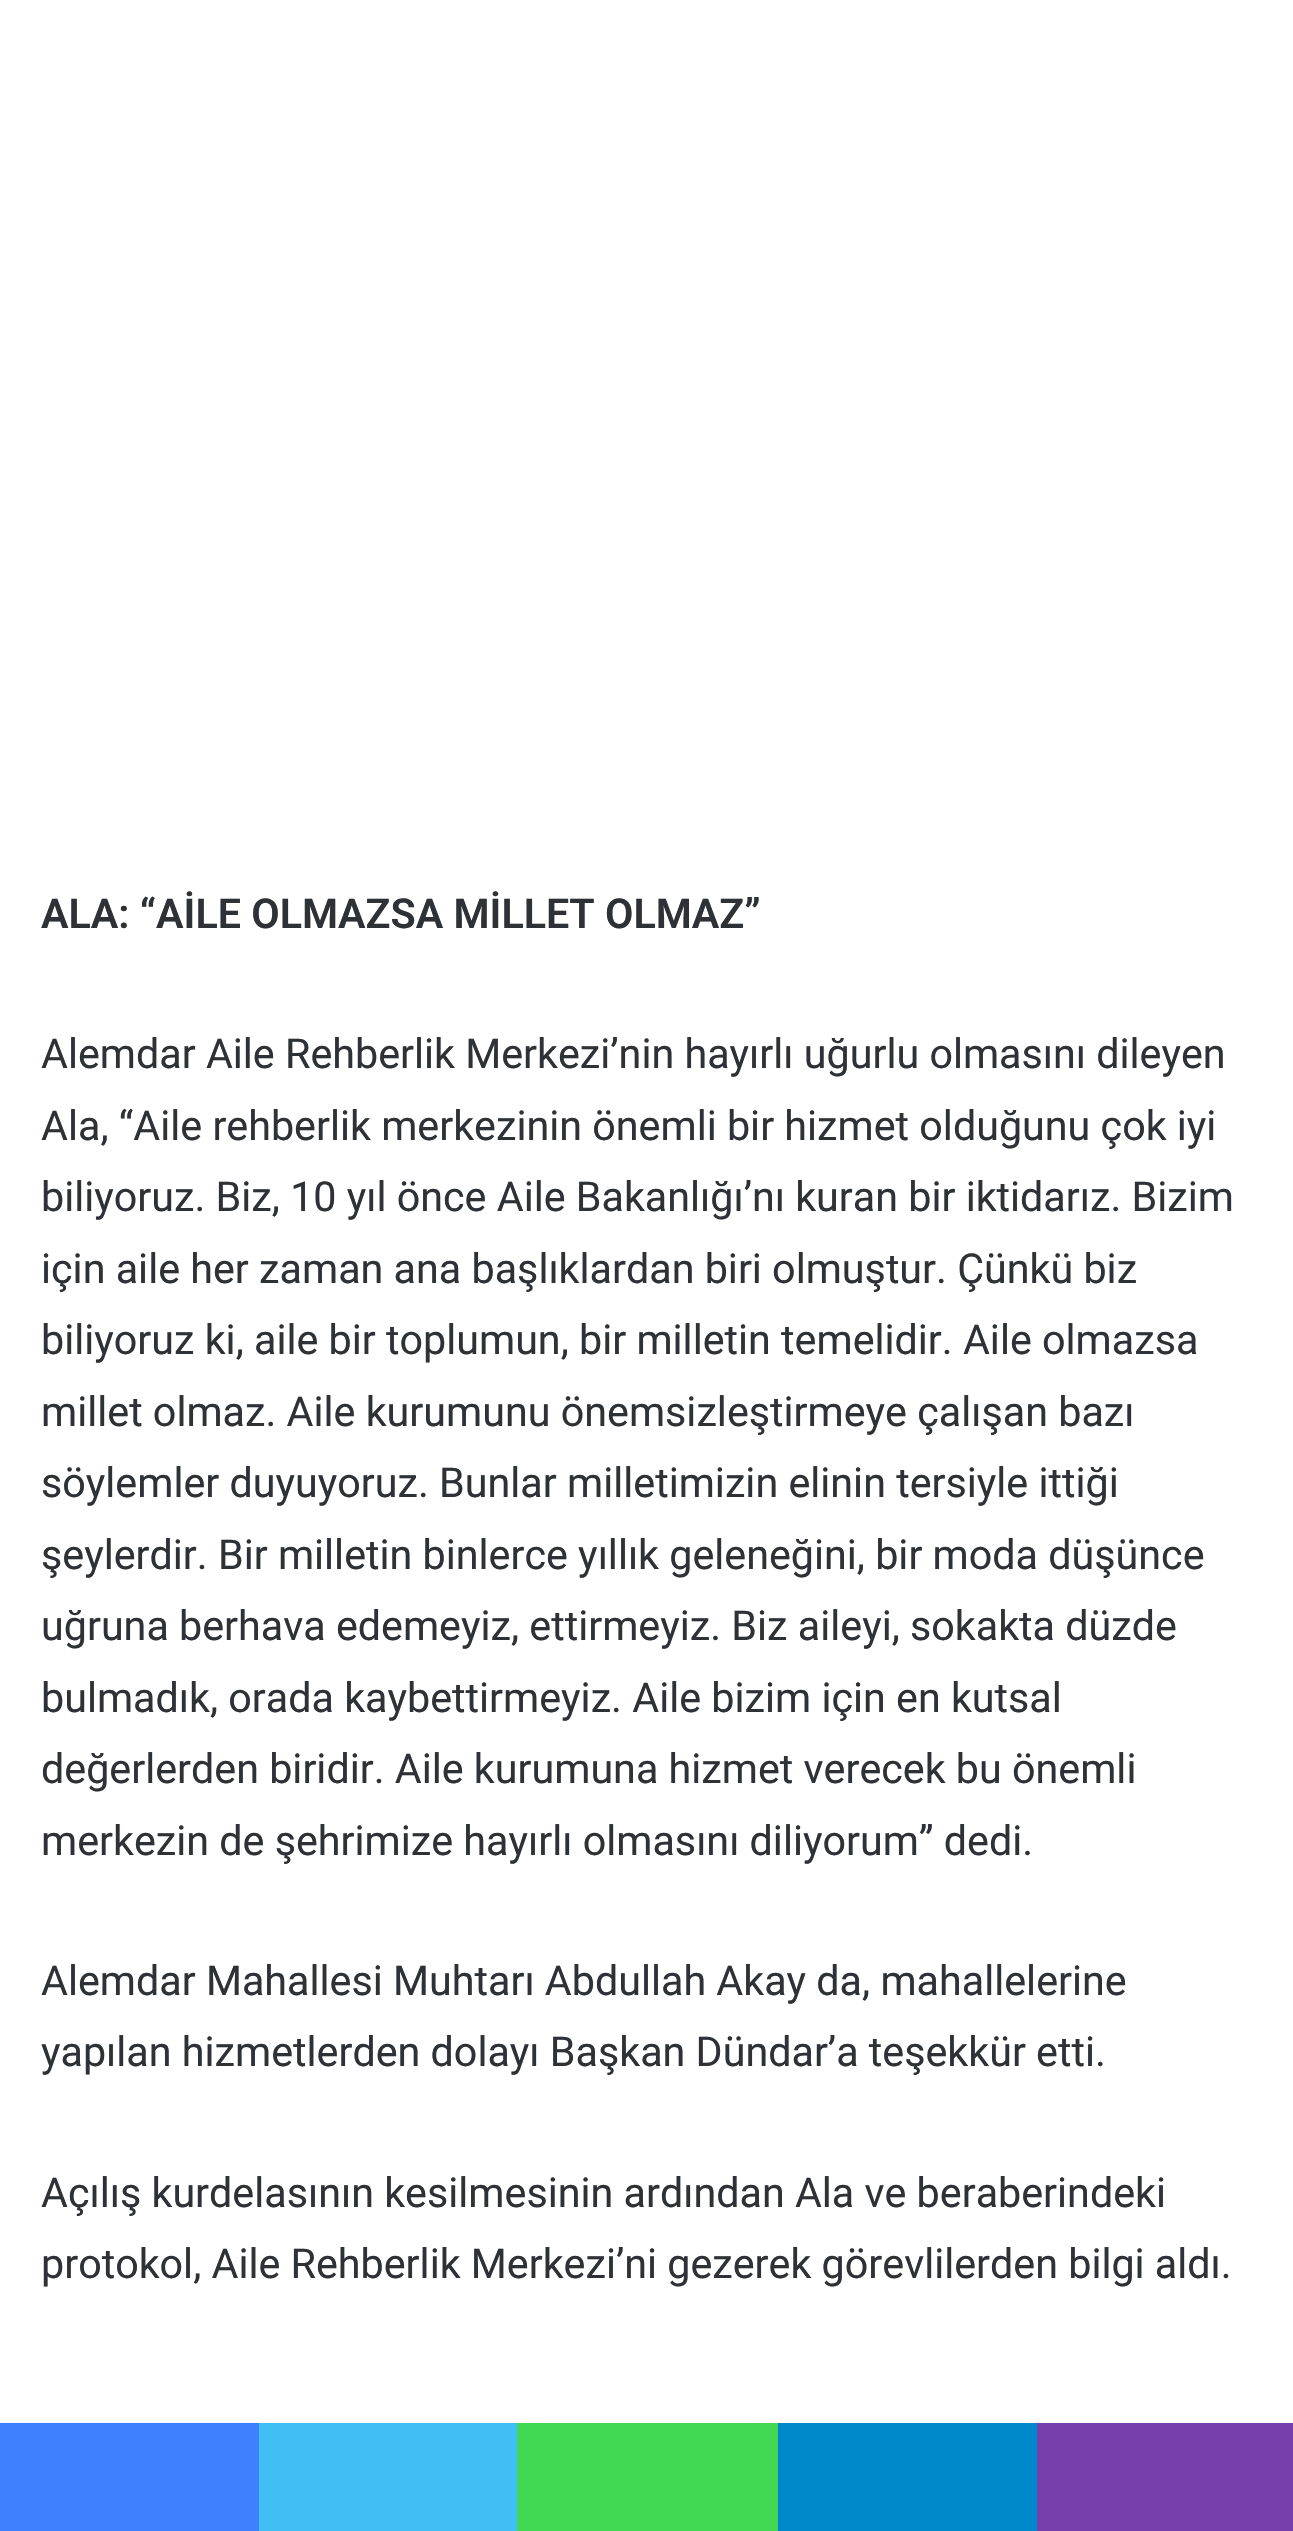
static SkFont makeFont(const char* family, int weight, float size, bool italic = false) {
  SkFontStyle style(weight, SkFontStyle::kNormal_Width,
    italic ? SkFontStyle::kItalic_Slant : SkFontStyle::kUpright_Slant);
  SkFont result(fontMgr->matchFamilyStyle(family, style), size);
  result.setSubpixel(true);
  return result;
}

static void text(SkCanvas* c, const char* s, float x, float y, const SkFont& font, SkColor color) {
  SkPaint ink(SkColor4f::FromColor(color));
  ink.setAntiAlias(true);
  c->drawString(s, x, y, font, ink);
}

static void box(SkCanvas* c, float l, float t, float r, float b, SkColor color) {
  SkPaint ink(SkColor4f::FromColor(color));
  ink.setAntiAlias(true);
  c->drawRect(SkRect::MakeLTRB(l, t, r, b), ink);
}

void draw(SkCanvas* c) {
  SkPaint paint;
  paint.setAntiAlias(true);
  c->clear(0xffffffff);
  SkFont face1 = makeFont("Roboto", 600, 41.25f);
  text(c, "ALA: “AİLE OLMAZSA MİLLET OLMAZ”", 41, 928, face1, 0xff2e3136);
  SkFont face2 = makeFont("Roboto", 400, 41.25f);
  text(c, "Alemdar Aile Rehberlik Merkezi’nin hayırlı uğurlu olmasını dileyen", 41, 1068, face2, 0xff2e3136);
  text(c, "Ala, “Aile rehberlik merkezinin önemli bir hizmet olduğunu çok iyi", 41, 1140, face2, 0xff2e3136);
  text(c, "biliyoruz. Biz, 10 yıl önce Aile Bakanlığı’nı kuran bir iktidarız. Bizim", 41, 1211, face2, 0xff2e3136);
  text(c, "için aile her zaman ana başlıklardan biri olmuştur. Çünkü biz", 41, 1283, face2, 0xff2e3136);
  text(c, "biliyoruz ki, aile bir toplumun, bir milletin temelidir. Aile olmazsa", 41, 1354, face2, 0xff2e3136);
  text(c, "millet olmaz. Aile kurumunu önemsizleştirmeye çalışan bazı", 41, 1426, face2, 0xff2e3136);
  text(c, "söylemler duyuyoruz. Bunlar milletimizin elinin tersiyle ittiği", 41, 1497, face2, 0xff2e3136);
  text(c, "şeylerdir. Bir milletin binlerce yıllık geleneğini, bir moda düşünce", 41, 1569, face2, 0xff2e3136);
  text(c, "uğruna berhava edemeyiz, ettirmeyiz. Biz aileyi, sokakta düzde", 41, 1640, face2, 0xff2e3136);
  text(c, "bulmadık, orada kaybettirmeyiz. Aile bizim için en kutsal", 41, 1712, face2, 0xff2e3136);
  text(c, "değerlerden biridir. Aile kurumuna hizmet verecek bu önemli", 41, 1783, face2, 0xff2e3136);
  text(c, "merkezin de şehrimize hayırlı olmasını diliyorum” dedi.", 41, 1855, face2, 0xff2e3136);
  text(c, "Alemdar Mahallesi Muhtarı Abdullah Akay da, mahallelerine", 41, 1995, face2, 0xff2e3136);
  text(c, "yapılan hizmetlerden dolayı Başkan Dündar’a teşekkür etti.", 41, 2066, face2, 0xff2e3136);
  text(c, "Açılış kurdelasının kesilmesinin ardından Ala ve beraberindeki", 41, 2207, face2, 0xff2e3136);
  text(c, "protokol, Aile Rehberlik Merkezi’ni gezerek görevlilerden bilgi aldı.", 41, 2278, face2, 0xff2e3136);
  box(c, 0, 2423, 259, 2531, 0xff4080ff);
  box(c, 259, 2423, 517, 2531, 0xff40bff5);
  box(c, 517, 2423, 778, 2531, 0xff43d854);
  box(c, 778, 2423, 1037, 2531, 0xff0088cc);
  box(c, 1037, 2423, 1293, 2531, 0xff773ead);
}
